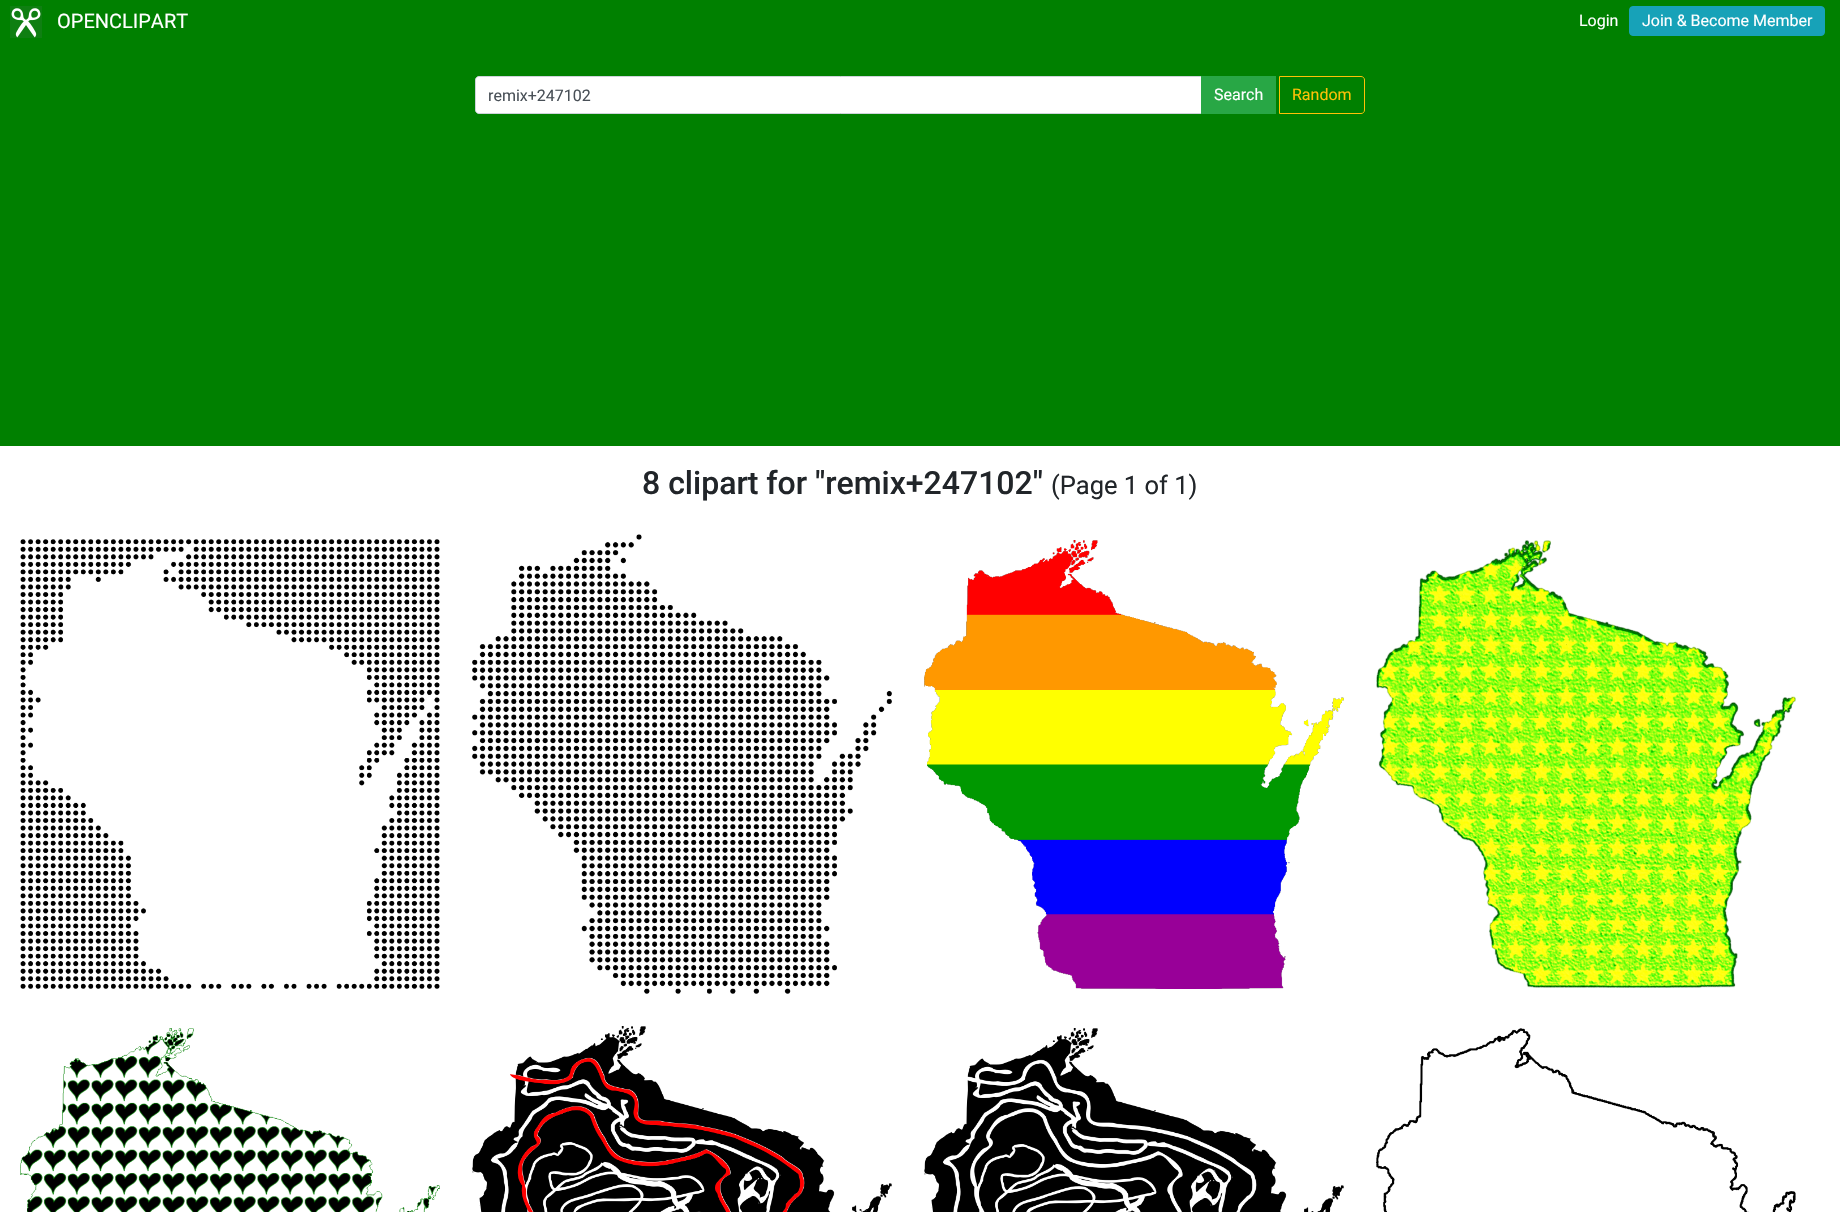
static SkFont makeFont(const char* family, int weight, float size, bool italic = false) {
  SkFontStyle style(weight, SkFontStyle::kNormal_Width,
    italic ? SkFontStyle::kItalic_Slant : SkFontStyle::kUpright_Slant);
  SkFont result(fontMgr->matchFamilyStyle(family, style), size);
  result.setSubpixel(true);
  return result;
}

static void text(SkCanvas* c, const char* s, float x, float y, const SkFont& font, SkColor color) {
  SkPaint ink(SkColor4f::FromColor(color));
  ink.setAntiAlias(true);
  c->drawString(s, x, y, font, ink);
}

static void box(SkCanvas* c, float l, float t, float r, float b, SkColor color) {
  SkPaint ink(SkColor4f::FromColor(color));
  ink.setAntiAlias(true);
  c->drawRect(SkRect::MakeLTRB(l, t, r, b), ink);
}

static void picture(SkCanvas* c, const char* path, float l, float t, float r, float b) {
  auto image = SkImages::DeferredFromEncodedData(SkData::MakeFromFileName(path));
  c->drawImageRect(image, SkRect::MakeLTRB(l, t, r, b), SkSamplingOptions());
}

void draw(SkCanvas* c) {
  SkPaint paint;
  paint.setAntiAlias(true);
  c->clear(0xffffffff);
  box(c, 0, 0, 1840, 446, 0xff008000);
  picture(c, "img_01.png", 10, 6, 42, 38);
  SkFont face1 = makeFont("Roboto", 400, 20);
  text(c, "OPENCLIPART", 57, 28, face1, 0xffffffff);
  SkFont face2 = makeFont("Roboto", 400, 16);
  text(c, "Login", 1579, 26, face2, 0xffffffff);
  paint.setColor(0xff17a2b8);
  c->drawRoundRect(SkRect::MakeLTRB(1629.5f, 6.5f, 1824.5f, 35.5f), 3.5f, 3.5f, paint);
  paint.setStyle(SkPaint::kStroke_Style);
  paint.setStrokeWidth(1);
  c->drawRoundRect(SkRect::MakeLTRB(1629.5f, 6.5f, 1824.5f, 35.5f), 3.5f, 3.5f, paint);
  text(c, "Join & Become Member", 1642, 26, face2, 0xffffffff);
  paint.setStyle(SkPaint::kFill_Style);
  paint.setColor(0xffffffff);
  c->drawPath(SkPathBuilder().moveTo(479, 76.5f).lineTo(1201.5f, 76.5f).lineTo(1201.5f, 113.5f).lineTo(479, 113.5f).cubicTo(477, 113.5f, 475.5f, 112, 475.5f, 110).lineTo(475.5f, 80).cubicTo(475.5f, 78, 477, 76.5f, 479, 76.5f).close().detach(), paint);
  paint.setStyle(SkPaint::kStroke_Style);
  paint.setColor(0xffced4da);
  c->drawPath(SkPathBuilder().moveTo(479, 76.5f).lineTo(1201.5f, 76.5f).lineTo(1201.5f, 113.5f).lineTo(479, 113.5f).cubicTo(477, 113.5f, 475.5f, 112, 475.5f, 110).lineTo(475.5f, 80).cubicTo(475.5f, 78, 477, 76.5f, 479, 76.5f).close().detach(), paint);
  text(c, "remix+247102", 488, 101, face2, 0xff495057);
  box(c, 1201, 76, 1276, 114, 0xff28a745);
  text(c, "Search", 1214, 100, face2, 0xffffffff);
  paint.setColor(0xffffc107);
  c->drawPath(SkPathBuilder().moveTo(1279.5f, 76.5f).lineTo(1361, 76.5f).cubicTo(1363, 76.5f, 1364.5f, 78, 1364.5f, 80).lineTo(1364.5f, 110).cubicTo(1364.5f, 112, 1363, 113.5f, 1361, 113.5f).lineTo(1279.5f, 113.5f).close().detach(), paint);
  text(c, "Random", 1292, 100, face2, 0xffffc107);
  SkFont face3 = makeFont("Roboto", 500, 32);
  text(c, "8 clipart for \"remix+247102\"", 642, 494, face3, 0xff212529);
  SkFont face4 = makeFont("Roboto", 400, 25.5f);
  text(c, "(Page 1 of 1)", 1051, 494, face4, 0xff212529);
  picture(c, "img_02.png", 20, 539, 440, 989);
  picture(c, "img_03.png", 472, 534, 892, 994);
  picture(c, "img_04.png", 924, 540, 1344, 989);
  picture(c, "img_05.png", 1376, 540, 1796, 988);
  picture(c, "img_06.png", 20, 1028, 440, 1212);
  picture(c, "img_07.png", 472, 1026, 892, 1212);
  picture(c, "img_08.png", 924, 1028, 1344, 1212);
  picture(c, "img_09.png", 1376, 1028, 1796, 1212);
}
